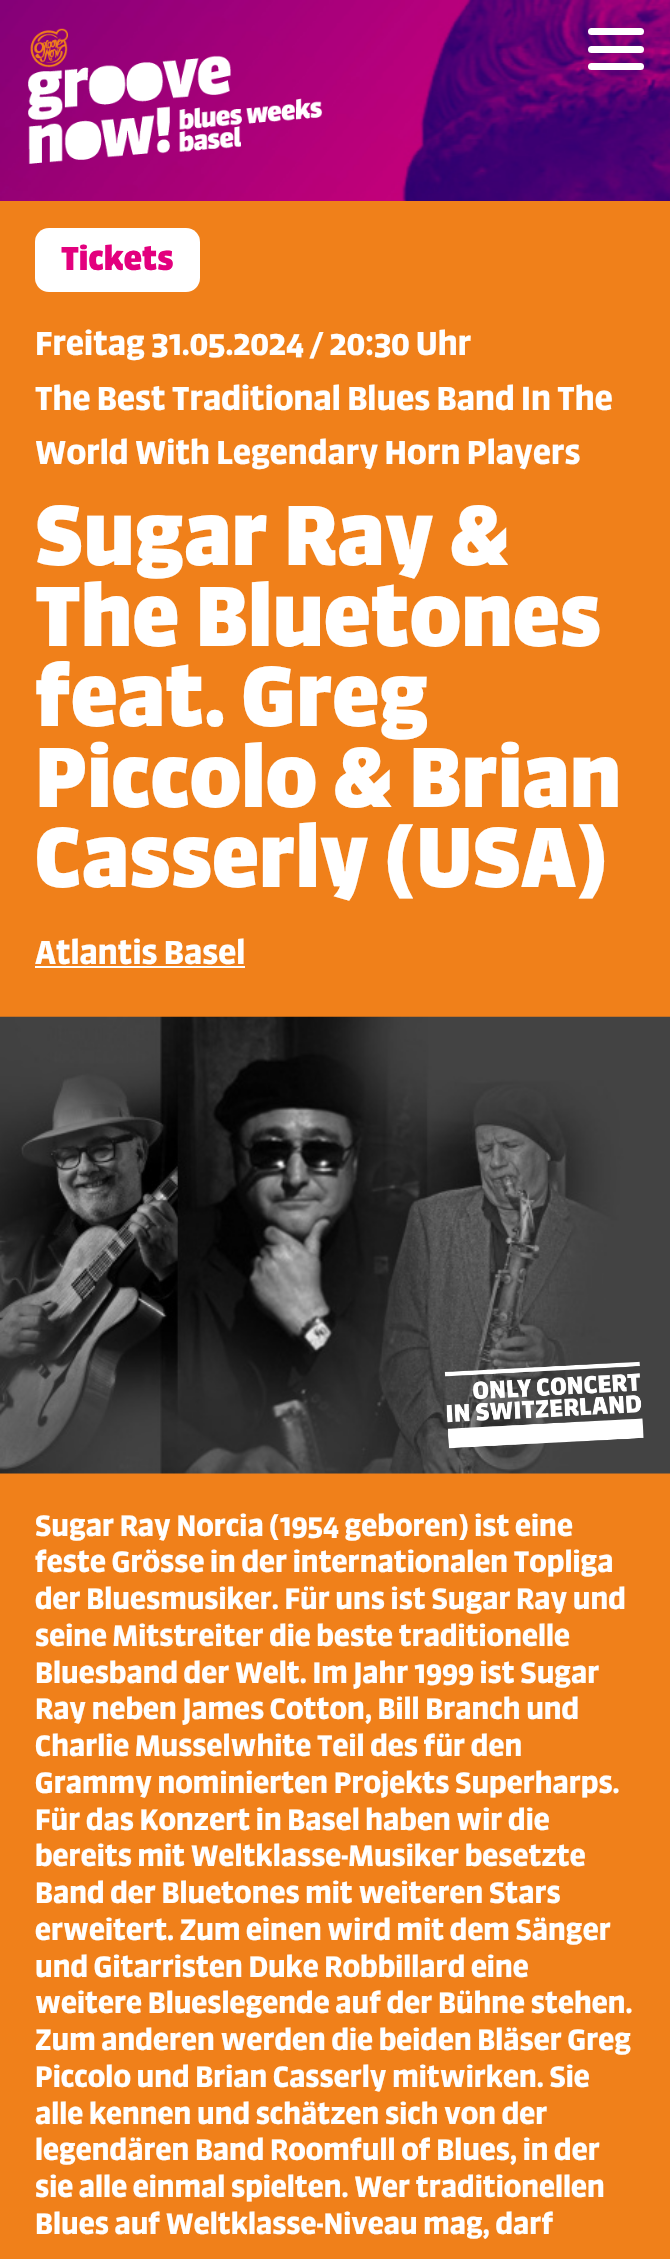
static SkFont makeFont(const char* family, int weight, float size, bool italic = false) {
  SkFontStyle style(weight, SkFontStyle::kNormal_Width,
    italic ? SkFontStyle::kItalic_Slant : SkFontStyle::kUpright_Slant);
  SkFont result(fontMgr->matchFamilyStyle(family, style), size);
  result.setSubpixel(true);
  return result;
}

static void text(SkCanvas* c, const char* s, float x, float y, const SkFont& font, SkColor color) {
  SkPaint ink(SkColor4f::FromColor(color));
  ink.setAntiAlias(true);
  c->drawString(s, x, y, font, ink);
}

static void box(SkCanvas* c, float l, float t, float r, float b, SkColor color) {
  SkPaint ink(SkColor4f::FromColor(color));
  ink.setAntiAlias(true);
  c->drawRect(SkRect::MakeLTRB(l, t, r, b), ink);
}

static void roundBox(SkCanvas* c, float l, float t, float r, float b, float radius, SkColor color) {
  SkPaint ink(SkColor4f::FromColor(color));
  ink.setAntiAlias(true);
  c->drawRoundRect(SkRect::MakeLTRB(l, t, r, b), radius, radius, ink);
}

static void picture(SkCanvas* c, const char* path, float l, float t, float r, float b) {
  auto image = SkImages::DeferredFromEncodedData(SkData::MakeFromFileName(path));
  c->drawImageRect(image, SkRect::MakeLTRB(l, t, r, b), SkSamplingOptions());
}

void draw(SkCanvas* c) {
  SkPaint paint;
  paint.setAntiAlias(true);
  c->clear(0xffffffff);
  picture(c, "img_01.png", 0, 0, 670, 201);
  picture(c, "img_02.png", 28, 28, 323, 164);
  roundBox(c, 588, 46, 644, 53, 3.5f, 0xffffffff);
  roundBox(c, 588, 28, 644, 35, 3.5f, 0xffffffff);
  roundBox(c, 588, 63, 644, 70, 3.5f, 0xffffffff);
  box(c, 0, 201, 670, 2259, 0xfff0801a);
  roundBox(c, 35, 228, 200, 292, 14, 0xffffffff);
  SkFont face1 = makeFont("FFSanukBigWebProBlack", 400, 31.5f);
  text(c, "Tickets", 61, 270, face1, 0xffe3007e);
  SkFont face2 = makeFont("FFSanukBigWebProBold", 400, 31.5f);
  text(c, "Freitag 31.05.2024 / 20:30 Uhr", 35, 355, face2, 0xffffffff);
  text(c, "The Best Traditional Blues Band In The", 35, 410, face2, 0xffffffff);
  text(c, "World With Legendary Horn Players", 35, 464, face2, 0xffffffff);
  SkFont face3 = makeFont("FFSanukBigWebProBlack", 400, 80.5f);
  text(c, "Sugar Ray &", 35, 565, face3, 0xffffffff);
  text(c, "The Bluetones", 35, 646, face3, 0xffffffff);
  text(c, "feat. Greg", 35, 726, face3, 0xffffffff);
  text(c, "Piccolo & Brian", 35, 807, face3, 0xffffffff);
  text(c, "Casserly (USA)", 35, 887, face3, 0xffffffff);
  text(c, "Atlantis Basel", 35, 964, face2, 0xffffffff);
  box(c, 35, 966, 245, 968, 0xffffffff);
  picture(c, "img_03.png", 0, 1016, 670, 1474);
  picture(c, "img_04.png", 444, 1361, 644, 1449);
  SkFont face4 = makeFont("FFSanukBigWebProBold", 400, 28);
  text(c, "Sugar Ray Norcia (1954 geboren) ist eine", 35, 1536, face4, 0xffffffff);
  text(c, "feste Grösse in der internationalen Topliga", 35, 1572, face4, 0xffffffff);
  text(c, "der Bluesmusiker. Für uns ist Sugar Ray und", 35, 1609, face4, 0xffffffff);
  text(c, "seine Mitstreiter die beste traditionelle", 35, 1646, face4, 0xffffffff);
  text(c, "Bluesband der Welt. Im Jahr 1999 ist Sugar", 35, 1683, face4, 0xffffffff);
  text(c, "Ray neben James Cotton, Bill Branch und", 35, 1719, face4, 0xffffffff);
  text(c, "Charlie Musselwhite Teil des für den", 35, 1756, face4, 0xffffffff);
  text(c, "Grammy nominierten Projekts Superharps.", 35, 1793, face4, 0xffffffff);
  text(c, "Für das Konzert in Basel haben wir die", 35, 1830, face4, 0xffffffff);
  text(c, "bereits mit Weltklasse-Musiker besetzte", 35, 1866, face4, 0xffffffff);
  text(c, "Band der Bluetones mit weiteren Stars", 35, 1903, face4, 0xffffffff);
  text(c, "erweitert. Zum einen wird mit dem Sänger", 35, 1940, face4, 0xffffffff);
  text(c, "und Gitarristen Duke Robbillard eine", 35, 1977, face4, 0xffffffff);
  text(c, "weitere Blueslegende auf der Bühne stehen.", 35, 2013, face4, 0xffffffff);
  text(c, "Zum anderen werden die beiden Bläser Greg", 35, 2050, face4, 0xffffffff);
  text(c, "Piccolo und Brian Casserly mitwirken. Sie", 35, 2087, face4, 0xffffffff);
  text(c, "alle kennen und schätzen sich von der", 35, 2124, face4, 0xffffffff);
  text(c, "legendären Band Roomfull of Blues, in der", 35, 2160, face4, 0xffffffff);
  text(c, "sie alle einmal spielten. Wer traditionellen", 35, 2197, face4, 0xffffffff);
  text(c, "Blues auf Weltklasse-Niveau mag, darf", 35, 2234, face4, 0xffffffff);
}
